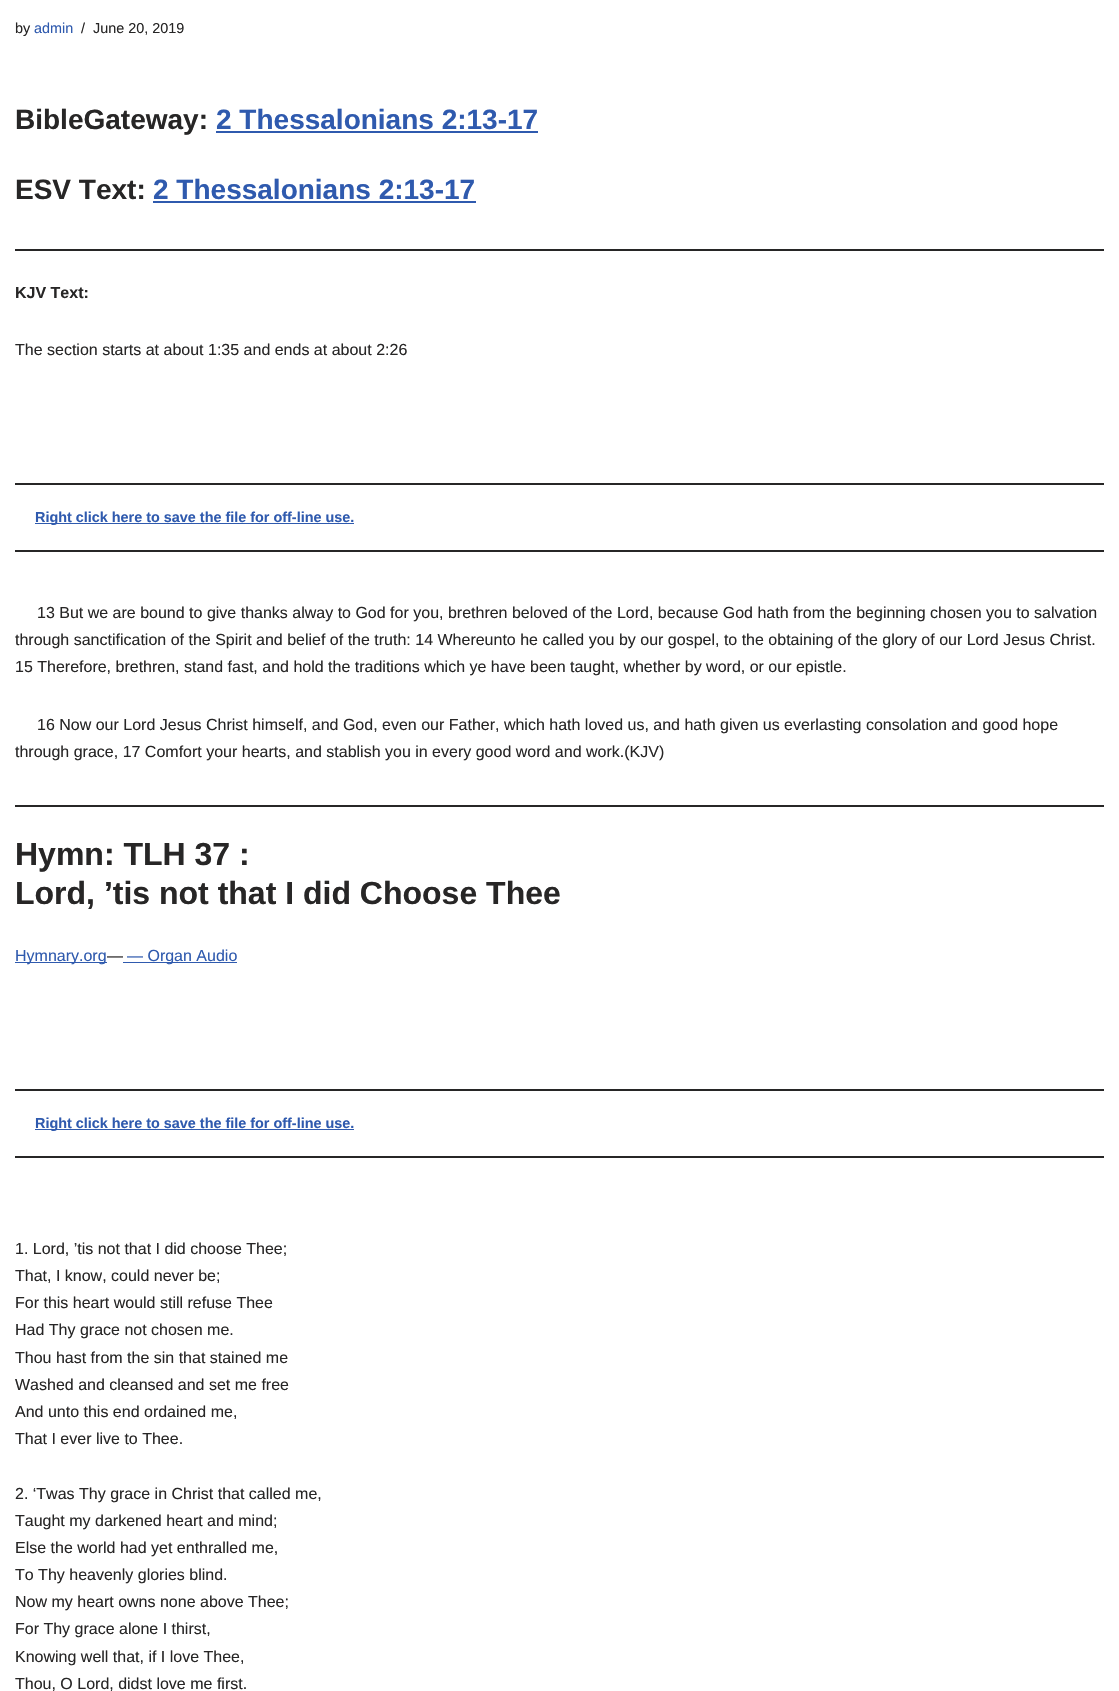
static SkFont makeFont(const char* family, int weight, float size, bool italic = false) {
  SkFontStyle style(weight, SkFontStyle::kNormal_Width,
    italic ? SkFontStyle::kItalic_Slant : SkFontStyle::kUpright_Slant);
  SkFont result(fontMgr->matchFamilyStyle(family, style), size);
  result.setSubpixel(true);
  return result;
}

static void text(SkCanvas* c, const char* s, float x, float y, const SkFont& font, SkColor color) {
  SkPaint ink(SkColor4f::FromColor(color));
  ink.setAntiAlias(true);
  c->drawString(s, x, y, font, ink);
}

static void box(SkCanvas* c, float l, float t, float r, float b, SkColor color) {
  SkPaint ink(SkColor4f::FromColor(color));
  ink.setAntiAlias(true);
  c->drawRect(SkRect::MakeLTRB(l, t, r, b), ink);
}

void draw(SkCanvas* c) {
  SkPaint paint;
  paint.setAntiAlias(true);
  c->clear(0xffffffff);
  SkFont face1 = makeFont("Liberation Sans", 400, 14.4f);
  text(c, "by", 15, 33, face1, 0xff272626);
  text(c, "admin", 34, 33, face1, 0xff2f5aae);
  text(c, "/", 81, 33, face1, 0xff272626);
  text(c, "June 20, 2019", 93, 33, face1, 0xff272626);
  SkFont face2 = makeFont("Liberation Sans", 700, 28);
  text(c, "BibleGateway:", 15, 129, face2, 0xff272626);
  text(c, "2 Thessalonians 2:13-17", 216, 129, face2, 0xff2f5aae);
  box(c, 216, 131, 538, 133, 0xff2f5aae);
  text(c, "ESV Text:", 15, 199, face2, 0xff272626);
  text(c, "2 Thessalonians 2:13-17", 153, 199, face2, 0xff2f5aae);
  box(c, 153, 201, 476, 203, 0xff2f5aae);
  box(c, 15, 249, 1104, 251, 0xff272626);
  SkFont face3 = makeFont("Liberation Sans", 700, 16);
  text(c, "KJV Text:", 15, 298, face3, 0xff272626);
  SkFont face4 = makeFont("Liberation Sans", 400, 16);
  text(c, "The section starts at about 1:35 and ends at about 2:26", 15, 355, face4, 0xff272626);
  box(c, 15, 483, 1104, 485, 0xff272626);
  box(c, 15, 550, 1104, 552, 0xff272626);
  box(c, 35, 523, 354, 524, 0xff2f5aae);
  SkFont face5 = makeFont("Liberation Sans", 700, 14.4f);
  text(c, "Right click here to save the file for off-line use.", 35, 522, face5, 0xff2f5aae);
  text(c, "13 But we are bound to give thanks alway to God for you, brethren beloved of the Lord, because God hath from the beginning chosen you to salvation", 37, 618, face4, 0xff272626);
  text(c, "through sanctification of the Spirit and belief of the truth: 14 Whereunto he called you by our gospel, to the obtaining of the glory of our Lord Jesus Christ.", 15, 645, face4, 0xff272626);
  text(c, "15 Therefore, brethren, stand fast, and hold the traditions which ye have been taught, whether by word, or our epistle.", 15, 672, face4, 0xff272626);
  text(c, "16 Now our Lord Jesus Christ himself, and God, even our Father, which hath loved us, and hath given us everlasting consolation and good hope", 37, 730, face4, 0xff272626);
  text(c, "through grace, 17 Comfort your hearts, and stablish you in every good word and work.(KJV)", 15, 757, face4, 0xff272626);
  box(c, 15, 805, 1104, 807, 0xff272626);
  SkFont face6 = makeFont("Liberation Sans", 700, 32);
  text(c, "Hymn: TLH 37 :", 15, 865, face6, 0xff272626);
  text(c, "Lord, ’tis not that I did Choose Thee", 15, 904, face6, 0xff272626);
  box(c, 15, 962, 107, 963, 0xff2f5aae);
  text(c, "Hymnary.org", 15, 961, face4, 0xff2f5aae);
  text(c, "—", 107, 961, face4, 0xff272626);
  box(c, 123, 962, 237, 963, 0xff2f5aae);
  text(c, "— Organ Audio", 127, 961, face4, 0xff2f5aae);
  box(c, 15, 1089, 1104, 1091, 0xff272626);
  box(c, 15, 1156, 1104, 1158, 0xff272626);
  box(c, 35, 1129, 354, 1130, 0xff2f5aae);
  text(c, "Right click here to save the file for off-line use.", 35, 1128, face5, 0xff2f5aae);
  text(c, "1. Lord, ’tis not that I did choose Thee;", 15, 1254, face4, 0xff272626);
  text(c, "That, I know, could never be;", 15, 1281, face4, 0xff272626);
  text(c, "For this heart would still refuse Thee", 15, 1308, face4, 0xff272626);
  text(c, "Had Thy grace not chosen me.", 15, 1335, face4, 0xff272626);
  text(c, "Thou hast from the sin that stained me", 15, 1363, face4, 0xff272626);
  text(c, "Washed and cleansed and set me free", 15, 1390, face4, 0xff272626);
  text(c, "And unto this end ordained me,", 15, 1417, face4, 0xff272626);
  text(c, "That I ever live to Thee.", 15, 1444, face4, 0xff272626);
  text(c, "2. ‘Twas Thy grace in Christ that called me,", 15, 1499, face4, 0xff272626);
  text(c, "Taught my darkened heart and mind;", 15, 1526, face4, 0xff272626);
  text(c, "Else the world had yet enthralled me,", 15, 1553, face4, 0xff272626);
  text(c, "To Thy heavenly glories blind.", 15, 1580, face4, 0xff272626);
  text(c, "Now my heart owns none above Thee;", 15, 1607, face4, 0xff272626);
  text(c, "For Thy grace alone I thirst,", 15, 1634, face4, 0xff272626);
  text(c, "Knowing well that, if I love Thee,", 15, 1662, face4, 0xff272626);
  text(c, "Thou, O Lord, didst love me first.", 15, 1689, face4, 0xff272626);
}
